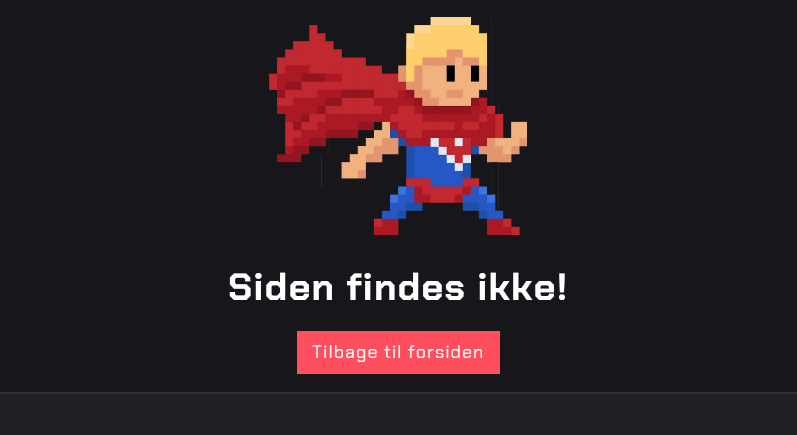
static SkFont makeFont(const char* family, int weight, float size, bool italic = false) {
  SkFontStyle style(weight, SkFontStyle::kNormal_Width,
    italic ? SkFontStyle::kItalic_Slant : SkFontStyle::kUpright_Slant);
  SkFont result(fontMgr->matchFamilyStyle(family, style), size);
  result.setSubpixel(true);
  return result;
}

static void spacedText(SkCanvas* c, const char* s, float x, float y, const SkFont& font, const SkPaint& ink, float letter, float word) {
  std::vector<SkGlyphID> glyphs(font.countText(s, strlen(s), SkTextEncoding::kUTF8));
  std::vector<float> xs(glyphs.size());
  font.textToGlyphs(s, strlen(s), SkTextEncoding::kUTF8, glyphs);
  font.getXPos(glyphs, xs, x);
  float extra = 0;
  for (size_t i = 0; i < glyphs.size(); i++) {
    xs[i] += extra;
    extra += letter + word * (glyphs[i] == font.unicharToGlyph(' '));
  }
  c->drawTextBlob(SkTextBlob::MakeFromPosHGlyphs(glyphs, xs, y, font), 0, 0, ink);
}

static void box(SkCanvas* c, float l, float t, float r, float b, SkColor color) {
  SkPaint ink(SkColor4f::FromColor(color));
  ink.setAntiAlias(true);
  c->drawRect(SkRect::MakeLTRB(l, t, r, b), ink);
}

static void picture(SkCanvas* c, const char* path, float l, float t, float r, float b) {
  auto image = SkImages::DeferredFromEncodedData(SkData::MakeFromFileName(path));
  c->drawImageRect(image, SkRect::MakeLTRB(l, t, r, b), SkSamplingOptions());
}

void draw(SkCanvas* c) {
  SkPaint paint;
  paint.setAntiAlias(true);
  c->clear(0xff17161b);
  picture(c, "img_01.png", 269, 17, 527, 235);
  SkFont face1 = makeFont("Chakra Petch", 700, 38);
  paint.setColor(0xffffffff);
  spacedText(c, "Siden findes ikke!", 228, 300, face1, paint, 1, 0);
  box(c, 297, 331, 500, 374, 0xffff4f5e);
  SkFont face2 = makeFont("Chakra Petch", 400, 18);
  spacedText(c, "Tilbage til forsiden", 312, 358, face2, paint, 1, 0);
  box(c, 0, 394, 797, 435, 0xff202125);
  box(c, 0, 392, 797, 394, 0xff2f3034);
}
